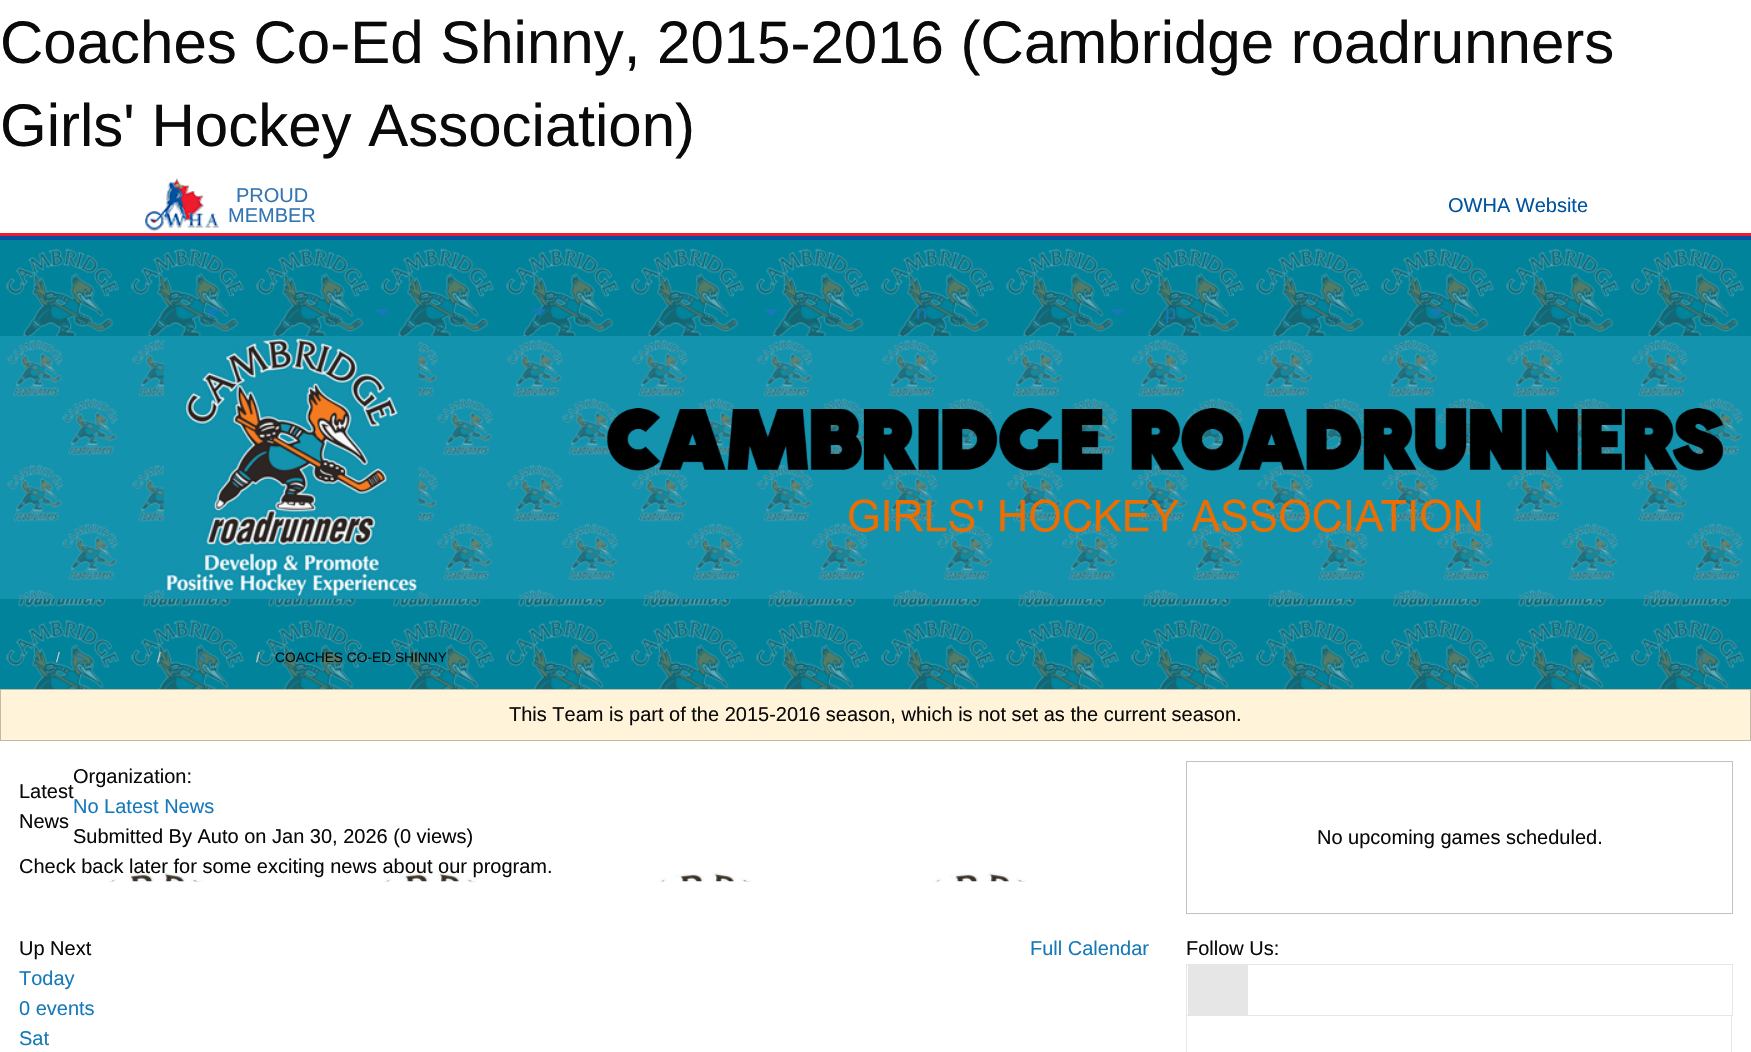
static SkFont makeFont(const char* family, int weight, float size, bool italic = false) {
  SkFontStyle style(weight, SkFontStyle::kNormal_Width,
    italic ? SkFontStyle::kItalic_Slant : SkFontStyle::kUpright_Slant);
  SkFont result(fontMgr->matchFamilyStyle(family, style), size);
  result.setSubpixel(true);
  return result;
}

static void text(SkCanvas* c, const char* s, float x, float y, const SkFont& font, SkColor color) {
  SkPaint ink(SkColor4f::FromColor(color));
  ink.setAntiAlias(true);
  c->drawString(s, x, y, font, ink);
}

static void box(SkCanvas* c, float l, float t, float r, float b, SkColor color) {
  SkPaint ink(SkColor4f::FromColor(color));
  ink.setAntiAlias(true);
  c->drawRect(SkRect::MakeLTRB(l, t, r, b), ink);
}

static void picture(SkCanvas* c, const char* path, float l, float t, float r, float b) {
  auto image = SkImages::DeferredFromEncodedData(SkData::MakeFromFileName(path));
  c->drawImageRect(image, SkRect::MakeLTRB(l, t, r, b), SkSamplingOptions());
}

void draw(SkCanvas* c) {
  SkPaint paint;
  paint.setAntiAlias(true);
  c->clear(0xffffffff);
  SkFont face1 = makeFont("Liberation Sans", 400, 60);
  text(c, "Coaches Co-Ed Shinny, 2015-2016 (Cambridge roadrunners", 0, 63, face1, 0xff0a0a0a);
  text(c, "Girls' Hockey Association)", 0, 146, face1, 0xff0a0a0a);
  picture(c, "img_01.png", 145, 177, 219, 232);
  SkFont face2 = makeFont("Liberation Sans", 400, 20);
  text(c, "PROUD", 236, 202, face2, 0xff3375b2);
  text(c, "MEMBER", 228, 222, face2, 0xff3375b2);
  text(c, "OWHA Website", 1448, 212, face2, 0xff00539f);
  box(c, 0, 233, 1751, 236, 0xffed1b2d);
  box(c, 0, 236, 1751, 240, 0xff00539f);
  box(c, 0, 240, 1751, 689, 0xff01839b);
  picture(c, "img_02.png", 6, 248, 1744, 689);
  paint.setColor(0xff1779ba);
  c->drawPath(SkPathBuilder().moveTo(205, 309).lineTo(220, 309).lineTo(212.5f, 316).close().detach(), paint);
  c->drawPath(SkPathBuilder().moveTo(375, 309).lineTo(390, 309).lineTo(382.5f, 316).close().detach(), paint);
  c->drawPath(SkPathBuilder().moveTo(531, 309).lineTo(546, 309).lineTo(539, 316).close().detach(), paint);
  c->drawPath(SkPathBuilder().moveTo(764, 309).lineTo(779, 309).lineTo(771, 316).close().detach(), paint);
  text(c, "n", 916, 319, face2, 0xff1779ba);
  c->drawPath(SkPathBuilder().moveTo(1110, 309).lineTo(1125, 309).lineTo(1117.5f, 316).close().detach(), paint);
  text(c, "p", 1165, 319, face2, 0xff1779ba);
  c->drawPath(SkPathBuilder().moveTo(1429, 309).lineTo(1444, 309).lineTo(1436, 316).close().detach(), paint);
  box(c, 0, 336, 1751, 599, 0xff1493ae);
  picture(c, "img_03.png", 7, 340, 1743, 599);
  picture(c, "img_04.png", 163, 337, 419, 599);
  picture(c, "img_05.png", 607, 408, 1724, 532);
  SkFont face3 = makeFont("Liberation Sans", 400, 13.75f);
  text(c, "/", 56, 662, face3, 0xffcacaca);
  text(c, "S", 75, 662, face3, 0xff1779ba);
  text(c, "/", 157, 662, face3, 0xffcacaca);
  text(c, "5-", 198, 662, face3, 0xff1779ba);
  text(c, "/", 256, 662, face3, 0xffcacaca);
  text(c, "COACHES CO-ED SHINNY", 275, 662, face3, 0xff0a0a0a);
  text(c, "I", 1700, 662, face3, 0xff1779ba);
  paint.setColor(0xfffff3d9);
  c->drawRect(SkRect::MakeLTRB(0.5f, 689.5f, 1750.5f, 740.5f), paint);
  paint.setStyle(SkPaint::kStroke_Style);
  paint.setStrokeWidth(1);
  paint.setColor(0xffc2b9a5);
  c->drawRect(SkRect::MakeLTRB(0.5f, 689.5f, 1750.5f, 740.5f), paint);
  text(c, "This Team is part of the 2015-2016 season, which is not set as the current season.", 509, 721, face2, 0xff0a0a0a);
  text(c, "Latest", 19, 798, face2, 0xff0a0a0a);
  text(c, "News", 19, 828, face2, 0xff0a0a0a);
  text(c, "Organization:", 73, 783, face2, 0xff0a0a0a);
  text(c, "No Latest News", 73, 813, face2, 0xff1779ba);
  text(c, "Submitted By Auto on Jan 30, 2026 (0 views)", 73, 843, face2, 0xff0a0a0a);
  picture(c, "img_06.png", 108, 872, 1027, 882);
  text(c, "Check back later for some exciting news about our program.", 19, 873, face2, 0xff0a0a0a);
  paint.setColor(0xffc2c2c2);
  c->drawRect(SkRect::MakeLTRB(1186.5f, 761.5f, 1732.5f, 913.5f), paint);
  text(c, "No upcoming games scheduled.", 1317, 844, face2, 0xff0a0a0a);
  text(c, "Up Next", 19, 955, face2, 0xff0a0a0a);
  text(c, "Full Calendar", 1030, 955, face2, 0xff1779ba);
  text(c, "Today", 19, 985, face2, 0xff1779ba);
  text(c, "0 events", 19, 1015, face2, 0xff1779ba);
  text(c, "Sat", 19, 1045, face2, 0xff1779ba);
  text(c, "Follow Us:", 1186, 955, face2, 0xff0a0a0a);
  paint.setColor(0xffe6e6e6);
  c->drawRect(SkRect::MakeLTRB(1186.5f, 964.5f, 1732.5f, 1015.5f), paint);
  box(c, 1188, 965, 1248, 1015, 0xffe6e6e6);
  box(c, 1731, 1016, 1732, 1052, 0xffe6e6e6);
  box(c, 1186, 1016, 1187, 1052, 0xffe6e6e6);
}
